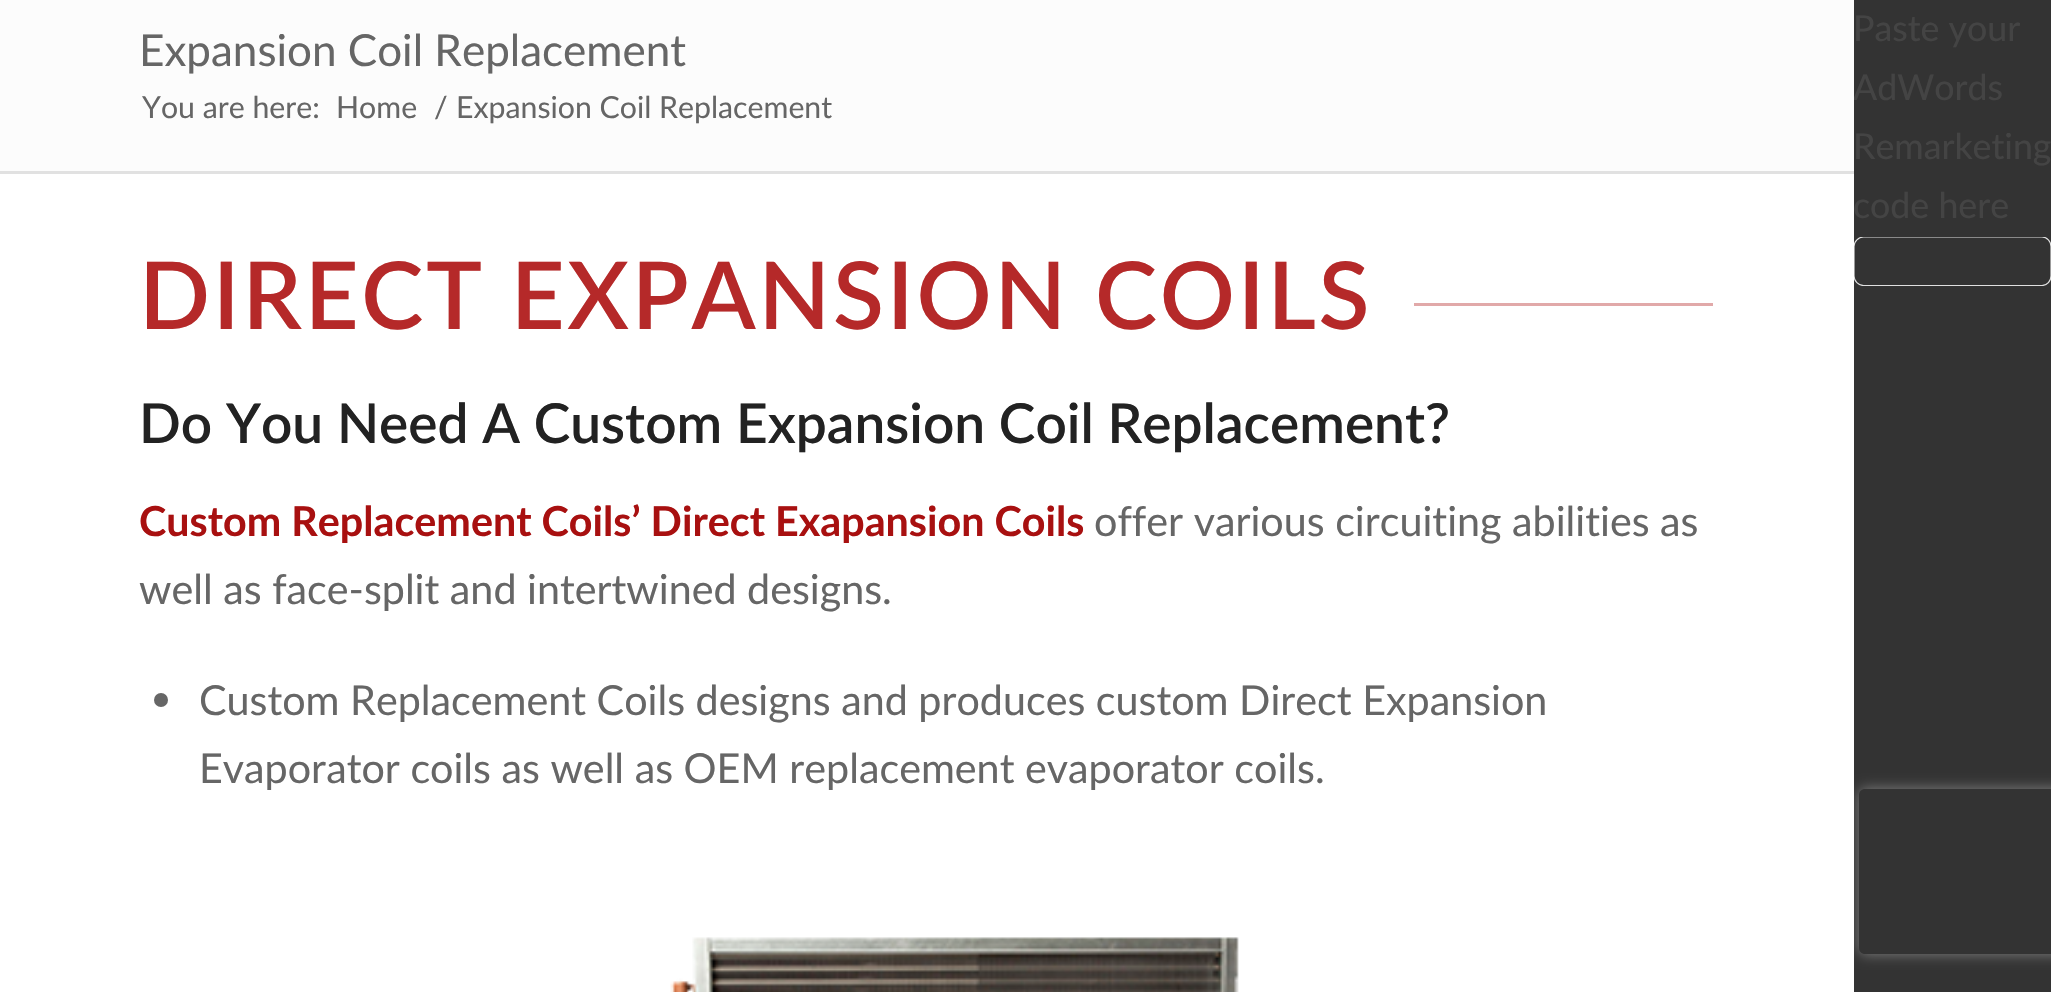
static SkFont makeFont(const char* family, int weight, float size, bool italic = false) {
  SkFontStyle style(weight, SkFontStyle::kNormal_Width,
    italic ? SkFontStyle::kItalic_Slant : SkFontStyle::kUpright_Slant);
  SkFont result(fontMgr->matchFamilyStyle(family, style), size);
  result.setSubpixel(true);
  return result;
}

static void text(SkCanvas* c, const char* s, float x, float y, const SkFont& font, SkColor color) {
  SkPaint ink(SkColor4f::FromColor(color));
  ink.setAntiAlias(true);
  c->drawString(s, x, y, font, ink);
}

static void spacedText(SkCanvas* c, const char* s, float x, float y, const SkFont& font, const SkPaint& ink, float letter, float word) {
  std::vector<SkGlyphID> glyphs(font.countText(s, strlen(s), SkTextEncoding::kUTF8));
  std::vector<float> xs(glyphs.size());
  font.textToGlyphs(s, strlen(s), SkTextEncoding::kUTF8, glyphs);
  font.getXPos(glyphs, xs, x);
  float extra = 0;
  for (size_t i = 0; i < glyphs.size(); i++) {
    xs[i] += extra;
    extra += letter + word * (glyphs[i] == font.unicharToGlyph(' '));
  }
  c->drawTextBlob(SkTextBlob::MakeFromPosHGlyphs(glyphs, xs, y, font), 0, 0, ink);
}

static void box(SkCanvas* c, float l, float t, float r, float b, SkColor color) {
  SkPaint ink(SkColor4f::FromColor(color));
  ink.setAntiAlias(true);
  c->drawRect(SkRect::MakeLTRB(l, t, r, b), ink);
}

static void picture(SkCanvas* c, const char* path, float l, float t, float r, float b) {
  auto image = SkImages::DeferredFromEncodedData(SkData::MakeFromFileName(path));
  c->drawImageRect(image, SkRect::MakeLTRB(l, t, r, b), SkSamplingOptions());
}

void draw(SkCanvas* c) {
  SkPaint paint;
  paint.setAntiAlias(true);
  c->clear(0xff333333);
  c->save();
  c->clipPath(SkPathBuilder(SkPathFillType::kEvenOdd).moveTo(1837, 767).lineTo(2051, 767).lineTo(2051, 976).lineTo(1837, 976).close().moveTo(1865, 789).lineTo(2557, 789).cubicTo(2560.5f, 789, 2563, 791.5f, 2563, 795).lineTo(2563, 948).cubicTo(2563, 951.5f, 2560.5f, 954, 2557, 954).lineTo(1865, 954).cubicTo(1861.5f, 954, 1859, 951.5f, 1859, 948).lineTo(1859, 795).cubicTo(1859, 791.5f, 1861.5f, 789, 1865, 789).close().detach(), true);
  paint.setColor(0xff808080);
  paint.setMaskFilter(SkMaskFilter::MakeBlur(kNormal_SkBlurStyle, 7));
  c->drawRoundRect(SkRect::MakeLTRB(1859, 789, 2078, 954), 6, 6, paint);
  paint.setMaskFilter(nullptr);
  c->restore();
  box(c, 0, 174, 1854, 992, 0xffffffff);
  SkFont face1 = makeFont("Lato", 400, 35.75f);
  text(c, "AdWords", 1853, 100, face1, 0xff444444);
  box(c, 0, 0, 1854, 171, 0xfffcfcfc);
  SkFont face2 = makeFont("Lato", 400, 44);
  text(c, "Expansion Coil Replacement", 139, 66, face2, 0xff666666);
  SkFont face3 = makeFont("Lato", 400, 30.25f);
  text(c, "You are here:", 142, 118, face3, 0xff666666);
  text(c, "Home", 336, 118, face3, 0xff666666);
  text(c, "/", 434, 118, face3, 0xff666666);
  text(c, "Expansion Coil Replacement", 456, 118, face3, 0xff666666);
  box(c, 0, 171, 1854, 174, 0xffe1e1e1);
  SkFont face4 = makeFont("Lato", 600, 93.5f);
  paint.setColor(0xffb52929);
  spacedText(c, "DIRECT EXPANSION COILS", 139, 329, face4, paint, 2.75f, 0);
  box(c, 1414, 303, 1713, 306, 0xffe1a9a9);
  SkFont face5 = makeFont("Lato", 600, 55);
  text(c, "Do You Need A Custom Expansion Coil Replacement?", 139, 443, face5, 0xff222222);
  SkFont face6 = makeFont("Lato", 700, 41.25f);
  text(c, "Custom Replacement Coils’ Direct Exapansion Coils", 139, 536, face6, 0xffa81010);
  SkFont face7 = makeFont("Lato", 400, 41.25f);
  text(c, "offer various circuiting abilities as", 1094, 536, face7, 0xff666666);
  text(c, "well as face-split and intertwined designs.", 139, 604, face7, 0xff666666);
  paint.setColor(0xff666666);
  c->drawCircle(161, 700, 7, paint);
  text(c, "Custom Replacement Coils designs and produces custom Direct Expansion", 199, 715, face7, 0xff666666);
  text(c, "Evaporator coils as well as OEM replacement evaporator coils.", 199, 783, face7, 0xff666666);
  picture(c, "img_01.png", 670, 937, 1239, 992);
  text(c, "Paste your", 1853, 41, face1, 0xff444444);
  text(c, "Remarketing", 1853, 159, face1, 0xff444444);
  text(c, "code here", 1853, 218, face1, 0xff444444);
  c->save();
  c->clipRect(SkRect::MakeLTRB(1854, 237, 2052, 286));
  paint.setStyle(SkPaint::kStroke_Style);
  paint.setStrokeWidth(1.2f);
  paint.setColor(0xffe0e0e0);
  c->drawPath(SkPathBuilder().moveTo(1863.5f, 237).lineTo(2042, 237).cubicTo(2047, 237, 2051, 241.5f, 2051, 246.5f).lineTo(2051, 276).cubicTo(2051, 281, 2047, 285.5f, 2042, 285.5f).lineTo(1863.5f, 285.5f).cubicTo(1858.5f, 285.5f, 1854, 281, 1854, 276).lineTo(1854, 246.5f).cubicTo(1854, 241.5f, 1858.5f, 237, 1863.5f, 237).close().detach(), paint);
  c->restore();
}
